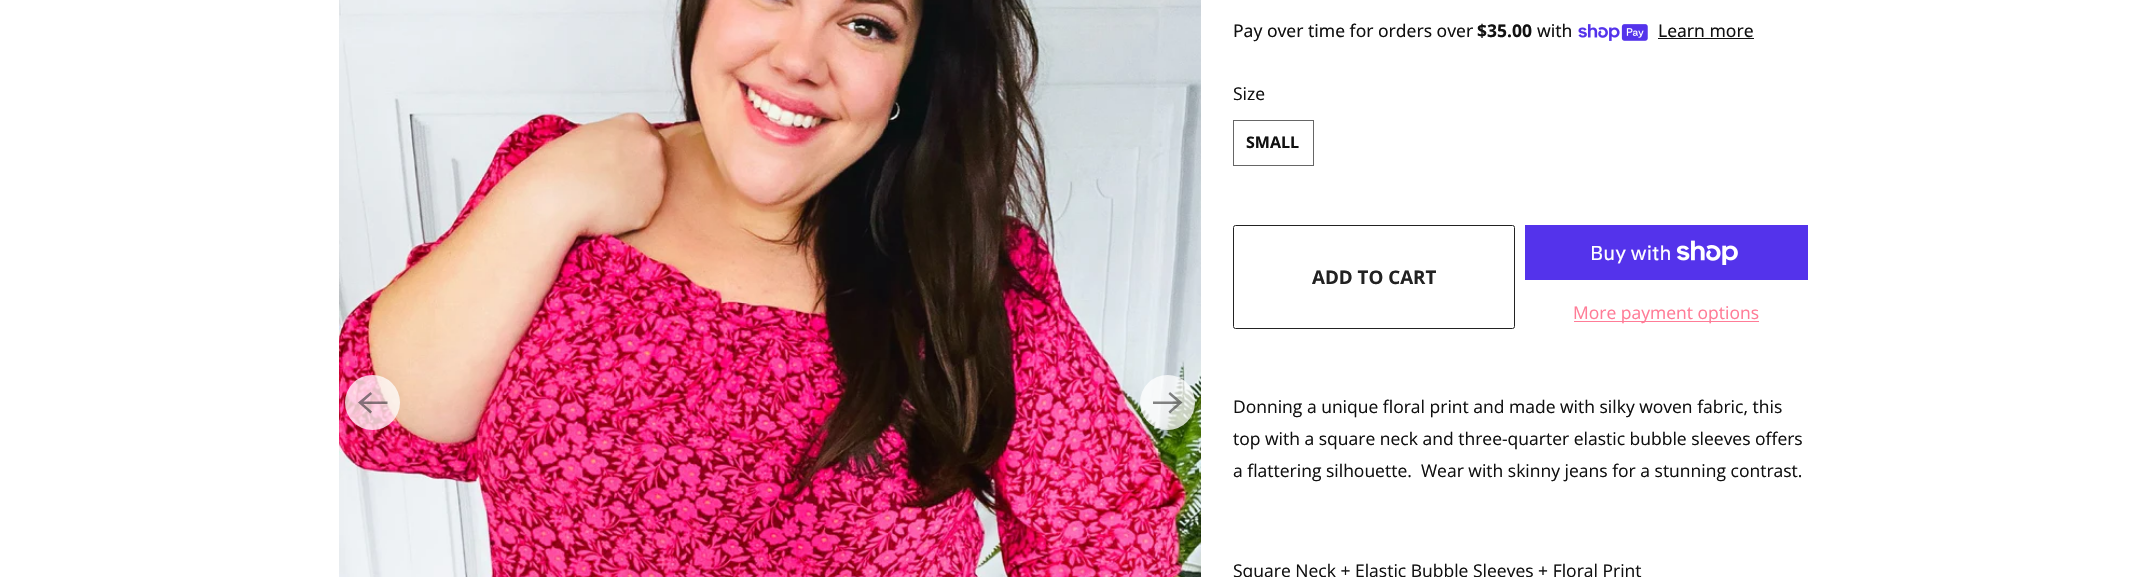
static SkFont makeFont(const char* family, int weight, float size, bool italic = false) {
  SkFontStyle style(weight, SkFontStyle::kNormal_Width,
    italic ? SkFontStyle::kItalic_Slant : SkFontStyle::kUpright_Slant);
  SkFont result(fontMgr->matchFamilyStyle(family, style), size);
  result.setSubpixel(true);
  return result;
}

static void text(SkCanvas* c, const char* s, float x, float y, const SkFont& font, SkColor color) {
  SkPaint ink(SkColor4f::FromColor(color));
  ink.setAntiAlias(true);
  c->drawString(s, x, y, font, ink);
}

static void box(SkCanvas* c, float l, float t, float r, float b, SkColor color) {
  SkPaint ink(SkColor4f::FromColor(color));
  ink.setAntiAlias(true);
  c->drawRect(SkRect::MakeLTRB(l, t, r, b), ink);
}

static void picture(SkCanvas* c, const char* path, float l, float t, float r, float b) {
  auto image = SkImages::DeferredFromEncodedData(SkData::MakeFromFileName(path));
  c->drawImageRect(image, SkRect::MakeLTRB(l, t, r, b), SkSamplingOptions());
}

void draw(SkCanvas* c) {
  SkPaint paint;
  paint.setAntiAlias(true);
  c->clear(0xffffffff);
  picture(c, "img_01.png", 339, 0, 1201, 577);
  paint.setColor(0xbfffffff);
  c->drawCircle(372.5f, 402.5f, 27.5f, paint);
  paint.setColor(0x99333333);
  c->drawPath(SkPathBuilder().moveTo(387.5f, 401.5f).lineTo(363.5f, 401.5f).lineTo(372, 394).lineTo(370.5f, 392).lineTo(358, 402.5f).lineTo(370.5f, 413.5f).lineTo(372, 411.5f).lineTo(363.5f, 404).lineTo(387.5f, 404).close().detach(), paint);
  paint.setColor(0xbfffffff);
  c->drawCircle(1167.5f, 402.5f, 27.5f, paint);
  paint.setColor(0x99333333);
  c->drawPath(SkPathBuilder().moveTo(1153, 404).lineTo(1177, 404).lineTo(1168.5f, 411.5f).lineTo(1170, 413.5f).lineTo(1182.5f, 402.5f).lineTo(1170, 392).lineTo(1168.5f, 394).lineTo(1177, 401.5f).lineTo(1153, 401.5f).close().detach(), paint);
  SkFont face1 = makeFont("Noto Sans", 400, 17.5f);
  text(c, "Pay over time for orders over", 1233, 37, face1, 0xff111111);
  SkFont face2 = makeFont("Noto Sans", 700, 17.5f);
  text(c, "$35.00", 1477, 37, face2, 0xff111111);
  text(c, "with", 1537, 37, face1, 0xff111111);
  picture(c, "img_02.png", 1578, 24, 1648, 41);
  text(c, "Learn more", 1658, 37, face1, 0xff111111);
  box(c, 1658, 38, 1754, 39, 0xff111111);
  SkFont face3 = makeFont("Open Sans", 400, 17.5f);
  text(c, "Size", 1233, 100, face3, 0xff111111);
  paint.setStyle(SkPaint::kStroke_Style);
  paint.setStrokeWidth(1);
  paint.setColor(0xff666666);
  c->drawRect(SkRect::MakeLTRB(1233.5f, 120.5f, 1313.5f, 165.5f), paint);
  SkFont face4 = makeFont("Open Sans", 700, 16);
  text(c, "SMALL", 1246, 148, face4, 0xff111111);
  paint.setColor(0xff222222);
  c->drawRoundRect(SkRect::MakeLTRB(1233.5f, 225.5f, 1514.5f, 328.5f), 2, 2, paint);
  SkFont face5 = makeFont("Open Sans", 700, 18.75f);
  text(c, "ADD TO CART", 1312, 284, face5, 0xff222222);
  box(c, 1525, 225, 1808, 280, 0xff5433eb);
  SkFont face6 = makeFont("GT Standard", 400, 20);
  text(c, "Buy with", 1590, 260, face6, 0xffffffff);
  picture(c, "img_03.png", 1676, 240, 1738, 265);
  box(c, 1574, 321, 1759, 322, 0xffff7c97);
  text(c, "More payment options", 1573, 319, face3, 0xffff7c97);
  text(c, "Donning a unique floral print and made with silky woven fabric, this", 1233, 413, face3, 0xff111111);
  text(c, "top with a square neck and three-quarter elastic bubble sleeves offers", 1233, 445, face3, 0xff111111);
  text(c, "a flattering silhouette.  Wear with skinny jeans for a stunning contrast.", 1233, 477, face3, 0xff111111);
  text(c, "Square Neck + Elastic Bubble Sleeves + Floral Print", 1233, 577, face3, 0xff111111);
}
